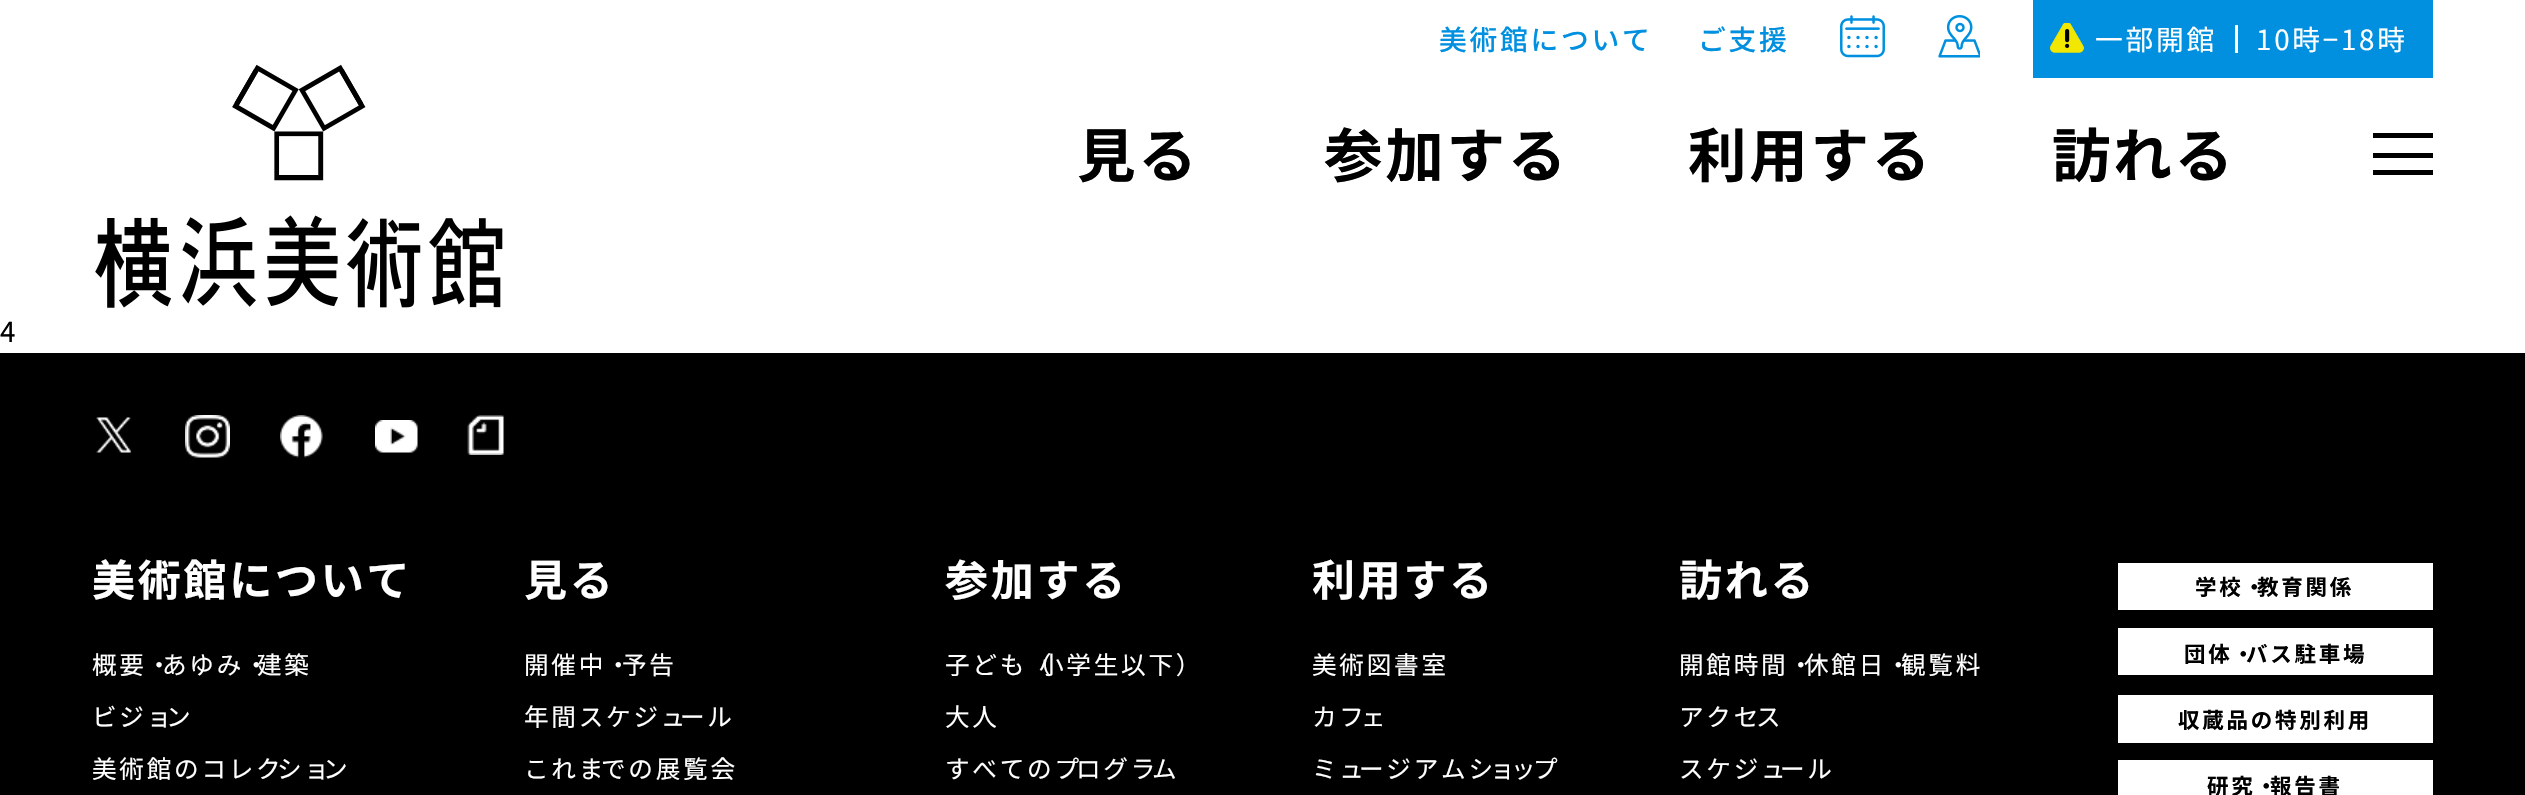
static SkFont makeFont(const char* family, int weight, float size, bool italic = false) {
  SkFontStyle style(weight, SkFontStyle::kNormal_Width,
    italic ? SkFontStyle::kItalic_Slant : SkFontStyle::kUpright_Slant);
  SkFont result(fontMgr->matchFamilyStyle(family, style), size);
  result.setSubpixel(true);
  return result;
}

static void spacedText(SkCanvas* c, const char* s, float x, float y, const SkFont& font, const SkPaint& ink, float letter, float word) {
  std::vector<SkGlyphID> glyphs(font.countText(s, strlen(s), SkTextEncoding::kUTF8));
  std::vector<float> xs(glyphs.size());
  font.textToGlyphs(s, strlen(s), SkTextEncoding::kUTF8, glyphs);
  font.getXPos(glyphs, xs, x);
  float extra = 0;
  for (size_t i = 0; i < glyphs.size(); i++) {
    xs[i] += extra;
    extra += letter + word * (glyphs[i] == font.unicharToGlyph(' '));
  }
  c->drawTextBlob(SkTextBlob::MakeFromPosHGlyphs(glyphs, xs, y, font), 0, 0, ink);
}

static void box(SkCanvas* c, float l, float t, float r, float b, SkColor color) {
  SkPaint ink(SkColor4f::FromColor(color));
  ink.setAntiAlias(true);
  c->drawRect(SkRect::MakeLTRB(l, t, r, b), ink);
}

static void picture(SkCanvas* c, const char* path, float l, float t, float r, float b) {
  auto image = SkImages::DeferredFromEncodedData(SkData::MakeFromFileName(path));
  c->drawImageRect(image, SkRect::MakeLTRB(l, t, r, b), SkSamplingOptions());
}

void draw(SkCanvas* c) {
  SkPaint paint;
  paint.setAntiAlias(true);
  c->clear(0xffffffff);
  SkFont face1 = makeFont("Noto Sans JP", 500, 27.75f);
  paint.setColor(0xff0090df);
  spacedText(c, "美術館について", 1439, 50, face1, paint, 2.75f, 0);
  spacedText(c, "ご支援", 1698, 50, face1, paint, 2.75f, 0);
  picture(c, "img_01.png", 1840, 15, 1885, 58);
  picture(c, "img_02.png", 1938, 15, 1980, 58);
  box(c, 2033, 0, 2433, 78, 0xff0090df);
  picture(c, "img_03.png", 2050, 23, 2084, 53);
  SkFont face2 = makeFont("Noto Sans JP", 400, 27.75f);
  paint.setColor(0xffffffff);
  spacedText(c, "一部開館", 2095, 50, face2, paint, 2.75f, 0);
  box(c, 2235, 25, 2238, 53, 0xffffffff);
  spacedText(c, "10時−18時", 2256, 50, face2, paint, 2.75f, 0);
  picture(c, "img_04.png", 23, 64, 503, 343);
  SkFont face3 = makeFont("Noto Sans JP", 700, 58.5f);
  paint.setColor(0xff000000);
  spacedText(c, "見る", 1077, 177, face3, paint, 2.75f, 0);
  spacedText(c, "参加する", 1324, 177, face3, paint, 2.75f, 0);
  spacedText(c, "利用する", 1688, 177, face3, paint, 2.75f, 0);
  spacedText(c, "訪れる", 2052, 177, face3, paint, 2.75f, 0);
  box(c, 2373, 153, 2433, 158, 0xff000000);
  box(c, 2373, 133, 2433, 138, 0xff000000);
  box(c, 2373, 170, 2433, 175, 0xff000000);
  spacedText(c, "4", 0, 342, face2, paint, 2.75f, 0);
  box(c, 0, 353, 2525, 795, 0xff000000);
  picture(c, "img_05.png", 96, 417, 131, 453);
  picture(c, "img_06.png", 185, 415, 230, 458);
  picture(c, "img_07.png", 280, 415, 323, 458);
  picture(c, "img_08.png", 375, 420, 418, 453);
  picture(c, "img_09.png", 467, 415, 505, 455);
  SkFont face4 = makeFont("Noto Sans JP", 700, 43);
  paint.setColor(0xffffffff);
  spacedText(c, "美術館について", 92, 596, face4, paint, 2.75f, 0);
  SkFont face5 = makeFont("Noto Sans JP", 400, 24.6f);
  spacedText(c, "概要・", 92, 674, face5, paint, 2.75f, 0);
  spacedText(c, "あゆみ・", 162, 674, face5, paint, 2.75f, 0);
  spacedText(c, "建築", 257, 674, face5, paint, 2.75f, 0);
  spacedText(c, "ビジョ", 92, 726, face5, paint, 2.75f, 0);
  spacedText(c, "ン", 166, 726, face5, paint, 2.75f, 0);
  spacedText(c, "美術館のコレク", 92, 778, face5, paint, 2.75f, 0);
  spacedText(c, "ショ", 277, 778, face5, paint, 2.75f, 0);
  spacedText(c, "ン", 323, 778, face5, paint, 2.75f, 0);
  spacedText(c, "見る", 524, 596, face4, paint, 2.75f, 0);
  spacedText(c, "開催中・", 524, 674, face5, paint, 2.75f, 0);
  spacedText(c, "予告", 622, 674, face5, paint, 2.75f, 0);
  spacedText(c, "年間スケジュ", 524, 726, face5, paint, 2.75f, 0);
  spacedText(c, "ール", 680, 726, face5, paint, 2.75f, 0);
  spacedText(c, "これま", 524, 778, face5, paint, 2.75f, 0);
  spacedText(c, "での展覧会", 601, 778, face5, paint, 2.75f, 0);
  spacedText(c, "参加する", 945, 596, face4, paint, 2.75f, 0);
  spacedText(c, "子ども（", 945, 674, face5, paint, 2.75f, 0);
  spacedText(c, "小学生以下）", 1039, 674, face5, paint, 2.75f, 0);
  spacedText(c, "大人", 945, 726, face5, paint, 2.75f, 0);
  spacedText(c, "すべてのプ", 945, 778, face5, paint, 2.75f, 0);
  spacedText(c, "ログラ", 1076, 778, face5, paint, 2.75f, 0);
  spacedText(c, "ム", 1152, 778, face5, paint, 2.75f, 0);
  spacedText(c, "利用する", 1312, 596, face4, paint, 2.75f, 0);
  spacedText(c, "美術図書室", 1312, 674, face5, paint, 2.75f, 0);
  spacedText(c, "カフ", 1312, 726, face5, paint, 2.75f, 0);
  spacedText(c, "ェ", 1361, 726, face5, paint, 2.75f, 0);
  spacedText(c, "ミュ", 1312, 778, face5, paint, 2.75f, 0);
  spacedText(c, "ージアムシ", 1359, 778, face5, paint, 2.75f, 0);
  spacedText(c, "ョ", 1490, 778, face5, paint, 2.75f, 0);
  spacedText(c, "ッ", 1511, 778, face5, paint, 2.75f, 0);
  spacedText(c, "プ", 1533, 778, face5, paint, 2.75f, 0);
  spacedText(c, "訪れる", 1679, 596, face4, paint, 2.75f, 0);
  spacedText(c, "開館時間・", 1679, 674, face5, paint, 2.75f, 0);
  spacedText(c, "休館日・", 1804, 674, face5, paint, 2.75f, 0);
  spacedText(c, "観覧料", 1901, 674, face5, paint, 2.75f, 0);
  spacedText(c, "アクセ", 1679, 726, face5, paint, 2.75f, 0);
  spacedText(c, "ス", 1756, 726, face5, paint, 2.75f, 0);
  spacedText(c, "スケジュ", 1679, 778, face5, paint, 2.75f, 0);
  spacedText(c, "ール", 1780, 778, face5, paint, 2.75f, 0);
  box(c, 2118, 563, 2433, 610, 0xffffffff);
  SkFont face6 = makeFont("Noto Sans JP", 700, 21.5f);
  paint.setColor(0xff000000);
  spacedText(c, "学校・", 2195, 595, face6, paint, 2.75f, 0);
  spacedText(c, "教育関係", 2257, 595, face6, paint, 2.75f, 0);
  box(c, 2118, 628, 2433, 675, 0xffffffff);
  spacedText(c, "団体・", 2184, 662, face6, paint, 2.75f, 0);
  spacedText(c, "バス駐車場", 2246, 662, face6, paint, 2.75f, 0);
  box(c, 2118, 695, 2433, 743, 0xffffffff);
  spacedText(c, "収蔵品の特別利用", 2178, 728, face6, paint, 2.75f, 0);
  box(c, 2118, 760, 2433, 795, 0xffffffff);
  spacedText(c, "研究・", 2207, 794, face6, paint, 2.75f, 0);
  spacedText(c, "報告書", 2270, 794, face6, paint, 2.75f, 0);
}
